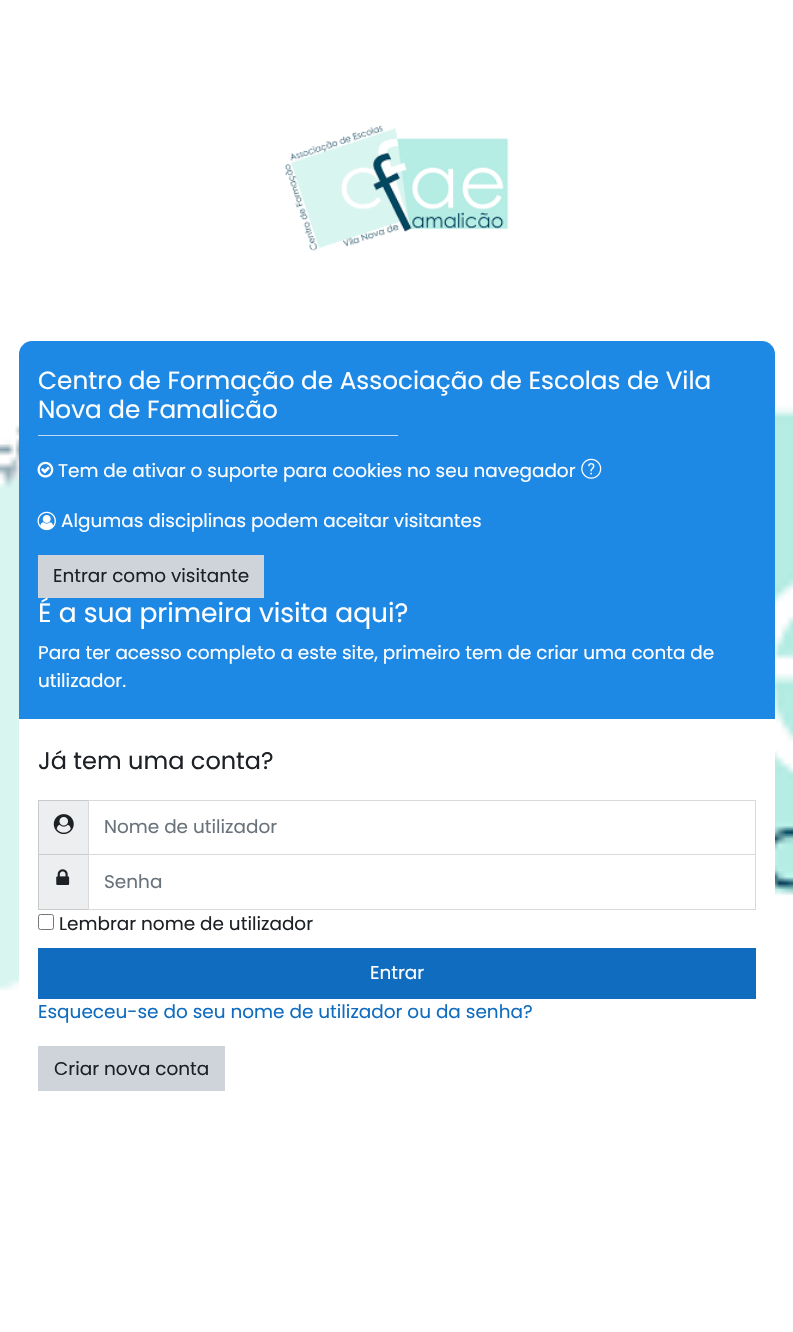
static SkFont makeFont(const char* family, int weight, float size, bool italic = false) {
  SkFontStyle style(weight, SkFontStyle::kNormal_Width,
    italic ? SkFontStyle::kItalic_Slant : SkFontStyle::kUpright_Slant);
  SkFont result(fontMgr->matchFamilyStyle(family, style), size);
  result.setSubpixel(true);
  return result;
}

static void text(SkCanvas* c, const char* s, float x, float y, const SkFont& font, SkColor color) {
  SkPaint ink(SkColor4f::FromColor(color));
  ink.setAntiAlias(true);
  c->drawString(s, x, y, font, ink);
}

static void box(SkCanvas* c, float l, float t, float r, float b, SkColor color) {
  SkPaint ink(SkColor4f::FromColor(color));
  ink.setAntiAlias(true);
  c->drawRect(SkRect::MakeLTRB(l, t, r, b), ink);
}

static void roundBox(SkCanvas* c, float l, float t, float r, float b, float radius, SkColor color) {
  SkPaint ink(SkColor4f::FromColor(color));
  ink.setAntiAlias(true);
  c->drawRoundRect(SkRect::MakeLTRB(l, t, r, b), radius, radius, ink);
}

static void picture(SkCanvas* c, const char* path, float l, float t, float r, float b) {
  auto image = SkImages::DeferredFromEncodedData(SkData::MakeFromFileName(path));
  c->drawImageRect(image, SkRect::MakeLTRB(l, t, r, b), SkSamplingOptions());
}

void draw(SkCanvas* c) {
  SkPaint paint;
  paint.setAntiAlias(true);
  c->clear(0xffffffff);
  picture(c, "img_01.png", 0, 0, 793, 1332);
  picture(c, "img_02.png", 284, 125, 509, 251);
  roundBox(c, 19, 341, 775, 1116, 13, 0xffffffff);
  paint.setColor(0xff1e88e5);
  c->drawPath(SkPathBuilder().moveTo(32, 341).lineTo(762, 341).cubicTo(769, 341, 775, 347, 775, 354).lineTo(775, 719).lineTo(19, 719).lineTo(19, 354).cubicTo(19, 347, 25, 341, 32, 341).close().detach(), paint);
  SkFont face1 = makeFont("Poppins", 400, 24.7f);
  text(c, "Centro de Formação de Associação de Escolas de Vila", 38, 389, face1, 0xffffffff);
  text(c, "Nova de Famalicão", 38, 418, face1, 0xffffffff);
  box(c, 38, 435, 398, 436, 0xffbcdbf7);
  picture(c, "img_03.png", 37, 461, 54, 478);
  SkFont face2 = makeFont("Poppins", 400, 18.45f);
  text(c, "Tem de ativar o suporte para cookies no seu navegador", 58, 477, face2, 0xffffffff);
  picture(c, "img_04.png", 581, 458, 602, 479);
  picture(c, "img_05.png", 37, 511, 56, 531);
  text(c, "Algumas disciplinas podem aceitar visitantes", 61, 527, face2, 0xffffffff);
  box(c, 38, 555, 264, 598, 0xffced4da);
  text(c, "Entrar como visitante", 53, 582, face2, 0xff1d2125);
  SkFont face3 = makeFont("Poppins", 400, 26.5f);
  text(c, "É a sua primeira visita aqui?", 38, 622, face3, 0xffffffff);
  text(c, "Para ter acesso completo a este site, primeiro tem de criar uma conta de", 38, 659, face2, 0xffffffff);
  text(c, "utilizador.", 38, 687, face2, 0xffffffff);
  SkFont face4 = makeFont("Poppins", 400, 24);
  text(c, "Já tem uma conta?", 38, 769, face4, 0xff1d2125);
  box(c, 38, 800, 88, 910, 0xffeceeef);
  paint.setColor(0xffc9cacb);
  c->drawPath(SkPathBuilder().moveTo(38, 800).lineTo(88, 800).lineTo(88, 801).lineTo(39, 801).close().moveTo(88, 855).lineTo(38, 855).lineTo(39, 854).lineTo(88, 854).close().detach(), paint);
  paint.setColor(0x26000000);
  c->drawPath(SkPathBuilder().moveTo(38, 855).lineTo(38, 800).lineTo(39, 801).lineTo(39, 854).close().detach(), paint);
  picture(c, "img_06.png", 53, 814, 74, 835);
  paint.setStyle(SkPaint::kStroke_Style);
  paint.setStrokeWidth(1);
  paint.setColor(0xffd9d9d9);
  c->drawRect(SkRect::MakeLTRB(88.5f, 800.5f, 755.5f, 854.5f), paint);
  text(c, "Nome de utilizador", 104, 833, face2, 0xff6a737b);
  paint.setStyle(SkPaint::kFill_Style);
  paint.setColor(0xffc9cacb);
  c->drawPath(SkPathBuilder().moveTo(88, 910).lineTo(38, 910).lineTo(39, 909).lineTo(88, 909).close().detach(), paint);
  paint.setColor(0x26000000);
  c->drawPath(SkPathBuilder().moveTo(38, 910).lineTo(38, 855).lineTo(39, 855).lineTo(39, 909).close().detach(), paint);
  picture(c, "img_07.png", 56, 869, 70, 885);
  paint.setColor(0xffd9d9d9);
  c->drawPath(SkPathBuilder().moveTo(756, 855).lineTo(756, 910).lineTo(755, 909).lineTo(755, 855).close().detach(), paint);
  paint.setColor(0x26000000);
  c->drawPath(SkPathBuilder().moveTo(756, 910).lineTo(88, 910).lineTo(89, 909).lineTo(755, 909).close().detach(), paint);
  c->drawPath(SkPathBuilder().moveTo(88, 910).lineTo(88, 855).lineTo(89, 855).lineTo(89, 909).close().detach(), paint);
  text(c, "Senha", 104, 888, face2, 0xff6a737b);
  paint.setStyle(SkPaint::kStroke_Style);
  paint.setColor(0xff767676);
  c->drawRoundRect(SkRect::MakeLTRB(38.5f, 914.5f, 53.5f, 929.5f), 2, 2, paint);
  text(c, "Lembrar nome de utilizador", 59, 930, face2, 0xff1d2125);
  box(c, 38, 948, 756, 999, 0xff0f6cbf);
  text(c, "Entrar", 370, 979, face2, 0xffffffff);
  text(c, "Esqueceu-se do seu nome de utilizador ou da senha?", 38, 1018, face2, 0xff0f6cbf);
  box(c, 38, 1046, 225, 1091, 0xffced4da);
  text(c, "Criar nova conta", 54, 1075, face2, 0xff1d2125);
}
